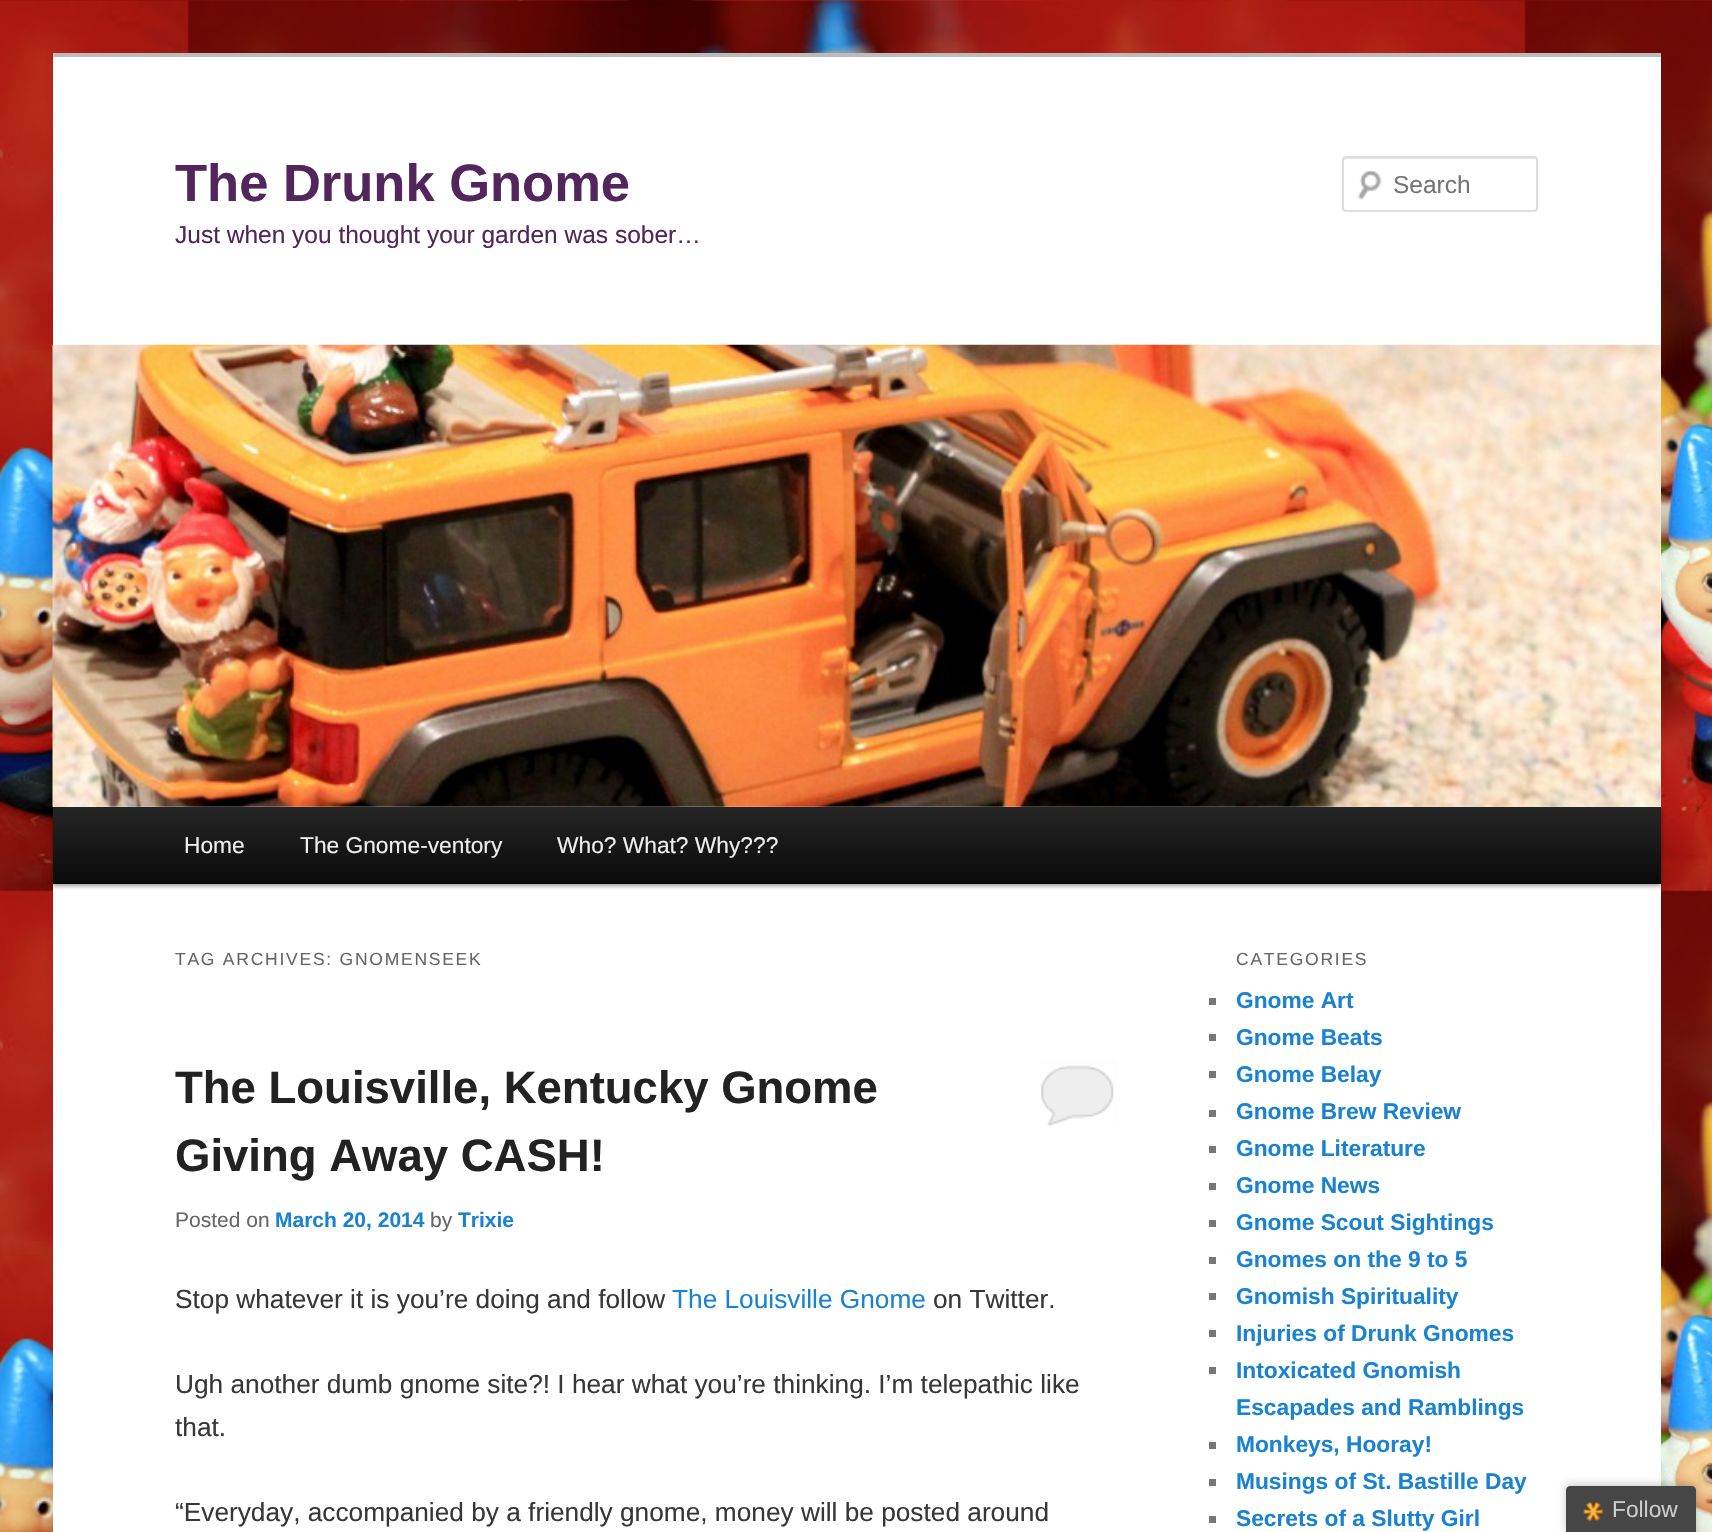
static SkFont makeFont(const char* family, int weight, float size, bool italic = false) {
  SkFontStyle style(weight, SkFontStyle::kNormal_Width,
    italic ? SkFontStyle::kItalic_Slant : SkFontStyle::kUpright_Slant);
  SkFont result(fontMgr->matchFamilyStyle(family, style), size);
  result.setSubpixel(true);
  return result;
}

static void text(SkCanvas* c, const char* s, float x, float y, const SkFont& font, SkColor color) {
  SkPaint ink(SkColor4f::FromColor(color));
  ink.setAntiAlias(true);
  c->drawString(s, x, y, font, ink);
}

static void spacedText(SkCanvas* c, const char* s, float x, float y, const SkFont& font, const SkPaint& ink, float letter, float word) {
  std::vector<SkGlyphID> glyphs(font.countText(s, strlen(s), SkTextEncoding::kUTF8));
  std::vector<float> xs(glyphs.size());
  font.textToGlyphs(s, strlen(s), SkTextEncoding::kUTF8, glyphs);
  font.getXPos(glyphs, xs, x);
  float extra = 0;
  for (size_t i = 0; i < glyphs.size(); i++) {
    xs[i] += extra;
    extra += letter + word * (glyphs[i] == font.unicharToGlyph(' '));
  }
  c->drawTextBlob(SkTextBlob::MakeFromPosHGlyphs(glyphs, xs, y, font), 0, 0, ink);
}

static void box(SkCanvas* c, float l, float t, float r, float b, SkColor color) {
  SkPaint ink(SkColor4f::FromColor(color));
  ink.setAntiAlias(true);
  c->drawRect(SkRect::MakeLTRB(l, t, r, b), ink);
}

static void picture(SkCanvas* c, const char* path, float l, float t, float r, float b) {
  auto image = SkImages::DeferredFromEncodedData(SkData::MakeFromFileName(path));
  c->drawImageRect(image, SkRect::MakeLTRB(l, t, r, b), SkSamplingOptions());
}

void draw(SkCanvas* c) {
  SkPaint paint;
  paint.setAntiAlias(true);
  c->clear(0xffffffff);
  picture(c, "img_01.png", 0, 0, 1712, 1532);
  box(c, 53, 57, 1661, 1532, 0xffffffff);
  box(c, 53, 53, 1661, 57, 0xffbbbbbb);
  SkFont face1 = makeFont("Liberation Sans", 700, 52.5f);
  text(c, "The Drunk Gnome", 175, 201, face1, 0xff52255c);
  SkFont face2 = makeFont("Liberation Sans", 400, 24.5f);
  text(c, "Just when you thought your garden was sober…", 175, 243, face2, 0xff52255c);
  picture(c, "img_02.png", 1357, 170, 1382, 200);
  paint.setColor(0xffe6e6e6);
  c->drawPath(SkPathBuilder().moveTo(1346, 159).lineTo(1535, 159).cubicTo(1536, 159, 1536, 160, 1536, 161).lineTo(1536, 210).cubicTo(1537, 209, 1537, 209, 1537, 208).lineTo(1537, 160).cubicTo(1537, 159, 1536, 158, 1535, 158).lineTo(1346, 158).cubicTo(1345, 158, 1344, 159, 1344, 160).lineTo(1344, 161).cubicTo(1344, 160, 1345, 159, 1346, 159).close().detach(), paint);
  paint.setStyle(SkPaint::kStroke_Style);
  paint.setStrokeWidth(2);
  paint.setColor(0xffdddddd);
  c->drawRoundRect(SkRect::MakeLTRB(1343, 157, 1537, 211), 3, 3, paint);
  text(c, "Search", 1393, 193, face2, 0xff757575);
  paint.setStyle(SkPaint::kFill_Style);
  paint.setColor(0x66000000);
  paint.setMaskFilter(SkMaskFilter::MakeBlur(kNormal_SkBlurStyle, 2));
  c->drawRect(SkRect::MakeLTRB(53, 809, 1661, 886), paint);
  paint.setMaskFilter(nullptr);
  picture(c, "img_03.png", 52, 344, 1661, 807);
  {
    const SkColor colors[] = {0xff252525, 0xff0a0a0a};
    const float stops[] = {0, 1};
    const SkPoint ends[] = {{857, 807}, {857, 884}};
    paint.setShader(SkGradientShader::MakeLinear(ends, colors, stops, 2, SkTileMode::kClamp));
    paint.setAlpha(255);
  }
  c->drawRect(SkRect::MakeLTRB(53, 807, 1661, 884), paint);
  SkFont face3 = makeFont("Liberation Sans", 400, 22.75f);
  text(c, "Home", 184, 853, face3, 0xffeeeeee);
  text(c, "The Gnome-ventory", 300, 853, face3, 0xffeeeeee);
  text(c, "Who? What? Why?\077?", 557, 853, face3, 0xffeeeeee);
  SkFont face4 = makeFont("Liberation Sans", 400, 17.5f);
  paint.setShader(nullptr);
  paint.setColor(0xff666666);
  spacedText(c, "TAG ARCHIVES: GNOMENSEEK", 175, 965, face4, paint, 1.75f, 0);
  SkFont face5 = makeFont("Liberation Sans", 700, 45.5f);
  text(c, "The Louisville, Kentucky Gnome", 175, 1103, face5, 0xff222222);
  text(c, "Giving Away CASH!", 175, 1171, face5, 0xff222222);
  box(c, 1040, 1062, 1115, 1125, 0xffeeeeee);
  picture(c, "img_04.png", 1040, 1062, 1115, 1126);
  SkFont face6 = makeFont("Liberation Sans", 400, 21);
  text(c, "Posted on", 175, 1227, face6, 0xff666666);
  SkFont face7 = makeFont("Liberation Sans", 700, 21);
  text(c, "March 20, 2014", 275, 1227, face7, 0xff1982d1);
  text(c, "by", 430, 1227, face6, 0xff666666);
  text(c, "Trixie", 458, 1227, face7, 0xff1982d1);
  SkFont face8 = makeFont("Liberation Sans", 400, 26.25f);
  text(c, "Stop whatever it is you’re doing and follow", 175, 1308, face8, 0xff373737);
  text(c, "The Louisville Gnome", 672, 1308, face8, 0xff1982d1);
  text(c, "on Twitter.", 933, 1308, face8, 0xff373737);
  text(c, "Ugh another dumb gnome site?! I hear what you’re thinking. I’m telepathic like", 175, 1393, face8, 0xff373737);
  text(c, "that.", 175, 1436, face8, 0xff373737);
  text(c, "“Everyday, accompanied by a friendly gnome, money will be posted around", 175, 1521, face8, 0xff373737);
  spacedText(c, "CATEGORIES", 1236, 965, face4, paint, 1.75f, 0);
  box(c, 1209, 998, 1216, 1005, 0xff777777);
  SkFont face9 = makeFont("Liberation Sans", 700, 22.75f);
  text(c, "Gnome Art", 1236, 1008, face9, 0xff1982d1);
  box(c, 1209, 1034, 1216, 1041, 0xff777777);
  text(c, "Gnome Beats", 1236, 1045, face9, 0xff1982d1);
  box(c, 1209, 1071, 1216, 1078, 0xff777777);
  text(c, "Gnome Belay", 1236, 1082, face9, 0xff1982d1);
  box(c, 1209, 1110, 1216, 1117, 0xff777777);
  text(c, "Gnome Brew Review", 1236, 1119, face9, 0xff1982d1);
  box(c, 1209, 1146, 1216, 1153, 0xff777777);
  text(c, "Gnome Literature", 1236, 1156, face9, 0xff1982d1);
  box(c, 1209, 1183, 1216, 1190, 0xff777777);
  text(c, "Gnome News", 1236, 1193, face9, 0xff1982d1);
  box(c, 1209, 1220, 1216, 1227, 0xff777777);
  text(c, "Gnome Scout Sightings", 1236, 1230, face9, 0xff1982d1);
  box(c, 1209, 1257, 1216, 1264, 0xff777777);
  text(c, "Gnomes on the 9 to 5", 1236, 1267, face9, 0xff1982d1);
  box(c, 1209, 1293, 1216, 1300, 0xff777777);
  text(c, "Gnomish Spirituality", 1236, 1304, face9, 0xff1982d1);
  box(c, 1209, 1330, 1216, 1337, 0xff777777);
  text(c, "Injuries of Drunk Gnomes", 1236, 1341, face9, 0xff1982d1);
  box(c, 1209, 1367, 1216, 1374, 0xff777777);
  text(c, "Intoxicated Gnomish", 1236, 1378, face9, 0xff1982d1);
  text(c, "Escapades and Ramblings", 1236, 1415, face9, 0xff1982d1);
  box(c, 1209, 1442, 1216, 1449, 0xff777777);
  text(c, "Monkeys, Hooray!", 1236, 1452, face9, 0xff1982d1);
  box(c, 1209, 1479, 1216, 1486, 0xff777777);
  text(c, "Musings of St. Bastille Day", 1236, 1489, face9, 0xff1982d1);
  box(c, 1209, 1516, 1216, 1523, 0xff777777);
  text(c, "Secrets of a Slutty Girl", 1236, 1526, face9, 0xff1982d1);
  paint.setColor(0x33000000);
  paint.setMaskFilter(SkMaskFilter::MakeBlur(kNormal_SkBlurStyle, 4.5f));
  c->drawRoundRect(SkRect::MakeLTRB(1566, 1484, 1696, 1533), 4, 4, paint);
  paint.setMaskFilter(nullptr);
  paint.setColor(0xff464646);
  c->drawPath(SkPathBuilder().moveTo(1570, 1486).lineTo(1692, 1486).cubicTo(1694, 1486, 1696, 1488, 1696, 1490).lineTo(1696, 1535).lineTo(1566, 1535).lineTo(1566, 1490).cubicTo(1566, 1488, 1568, 1486, 1570, 1486).close().detach(), paint);
  picture(c, "img_05.png", 1583, 1502, 1603, 1521);
  text(c, "Follow", 1612, 1517, face3, 0xffcccccc);
}
